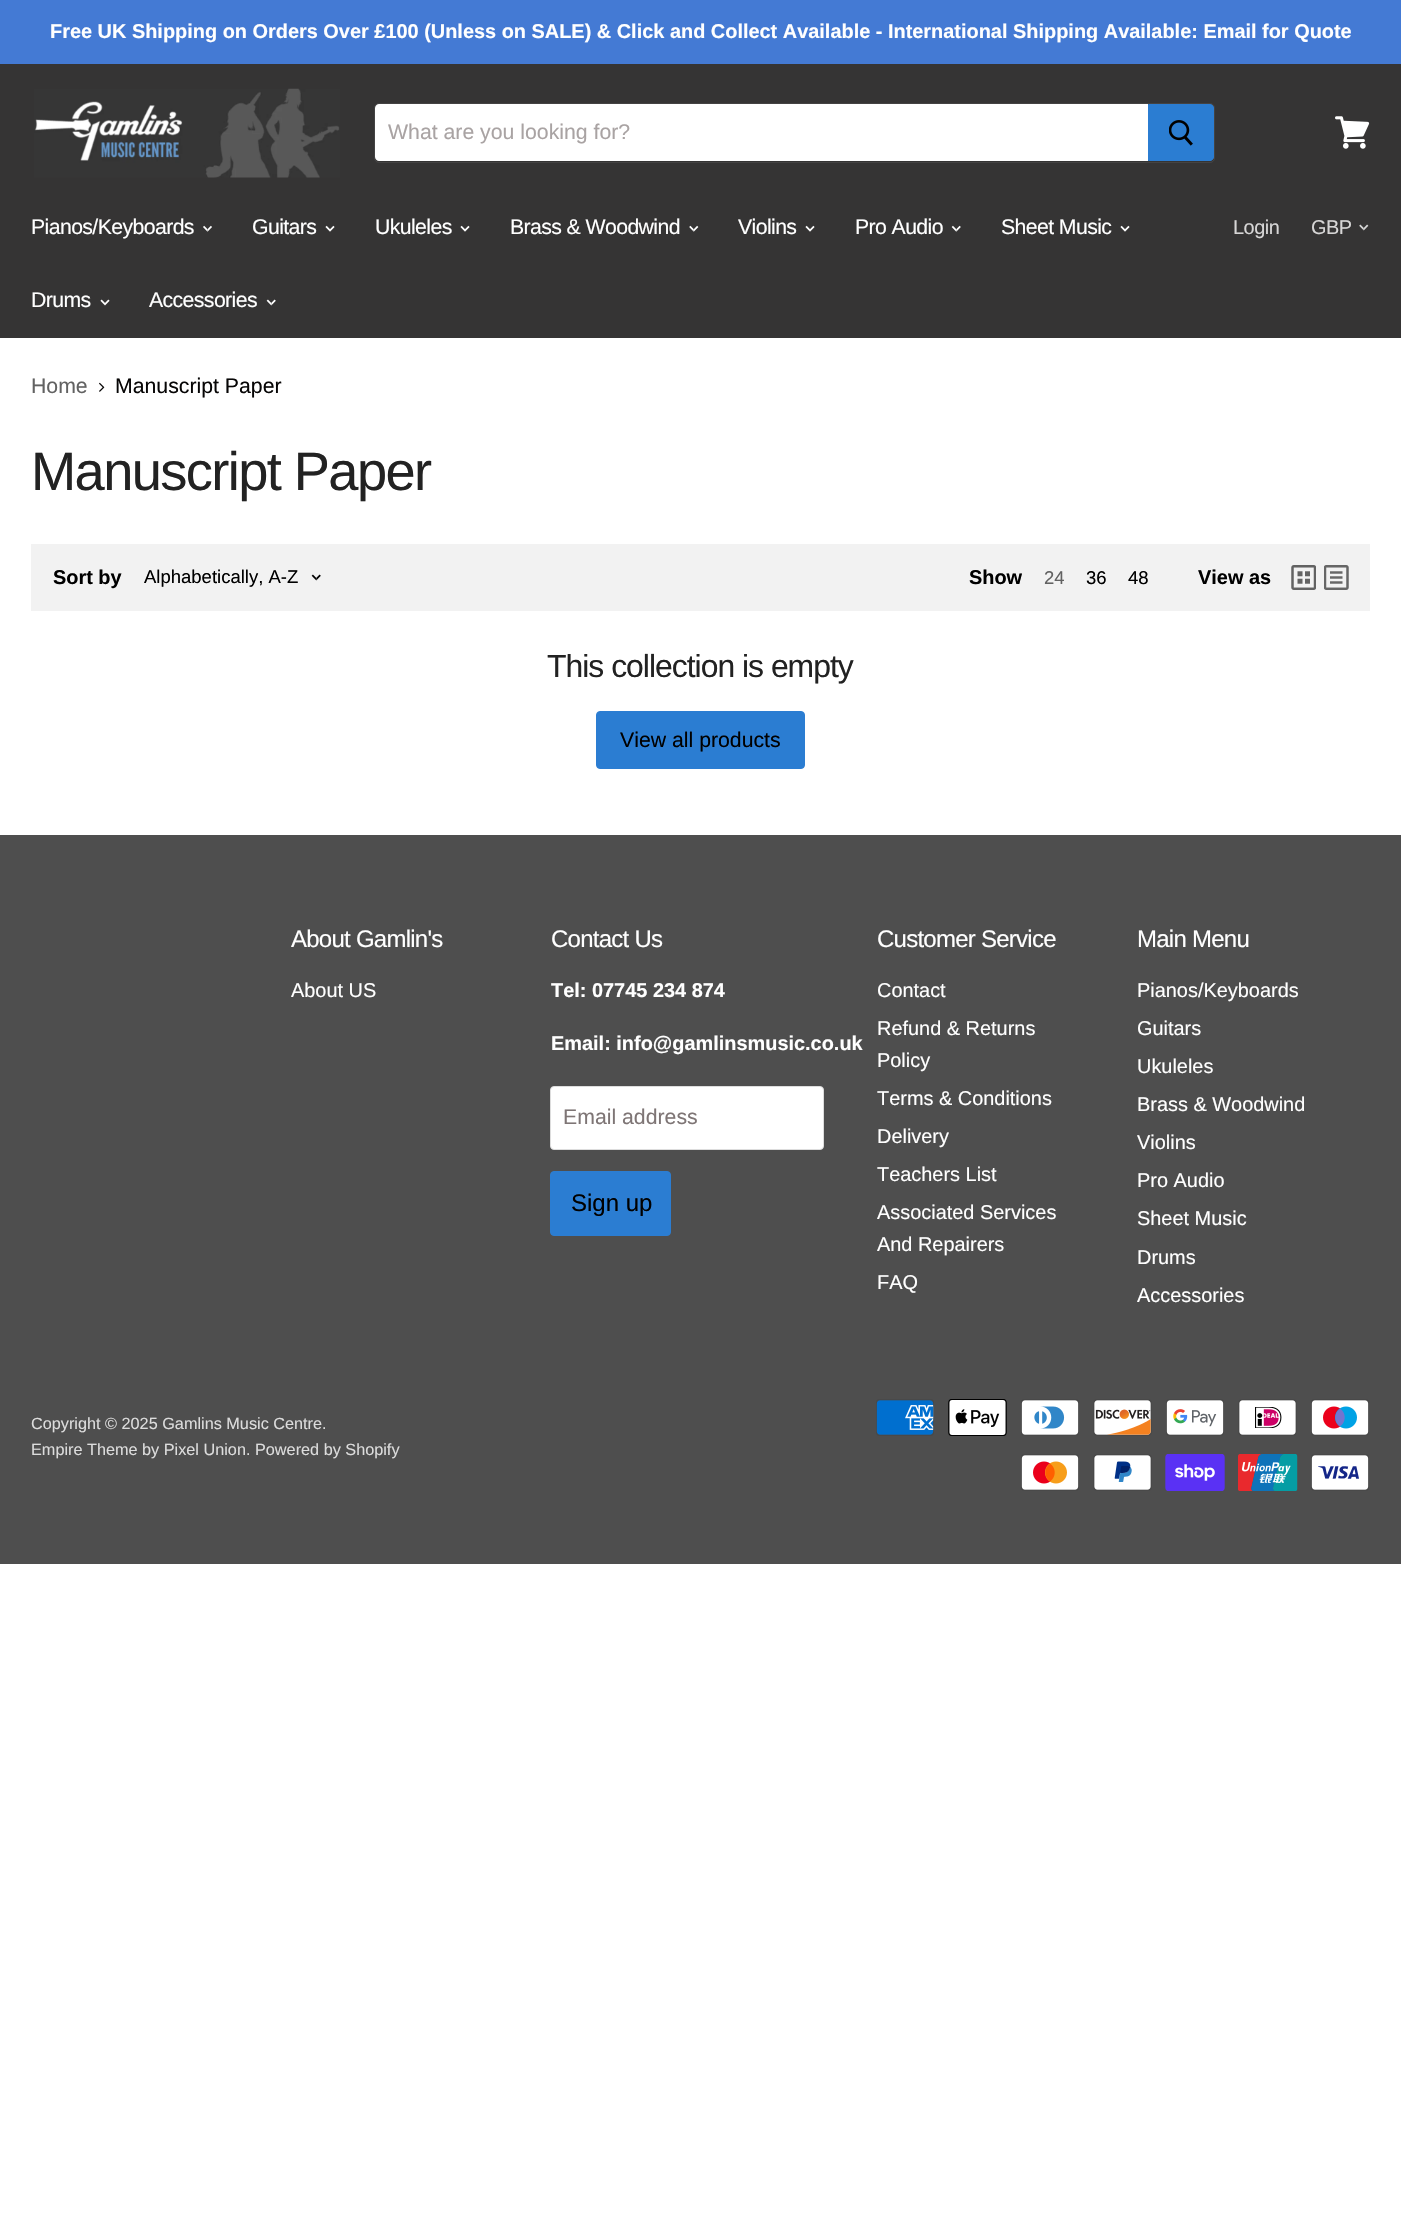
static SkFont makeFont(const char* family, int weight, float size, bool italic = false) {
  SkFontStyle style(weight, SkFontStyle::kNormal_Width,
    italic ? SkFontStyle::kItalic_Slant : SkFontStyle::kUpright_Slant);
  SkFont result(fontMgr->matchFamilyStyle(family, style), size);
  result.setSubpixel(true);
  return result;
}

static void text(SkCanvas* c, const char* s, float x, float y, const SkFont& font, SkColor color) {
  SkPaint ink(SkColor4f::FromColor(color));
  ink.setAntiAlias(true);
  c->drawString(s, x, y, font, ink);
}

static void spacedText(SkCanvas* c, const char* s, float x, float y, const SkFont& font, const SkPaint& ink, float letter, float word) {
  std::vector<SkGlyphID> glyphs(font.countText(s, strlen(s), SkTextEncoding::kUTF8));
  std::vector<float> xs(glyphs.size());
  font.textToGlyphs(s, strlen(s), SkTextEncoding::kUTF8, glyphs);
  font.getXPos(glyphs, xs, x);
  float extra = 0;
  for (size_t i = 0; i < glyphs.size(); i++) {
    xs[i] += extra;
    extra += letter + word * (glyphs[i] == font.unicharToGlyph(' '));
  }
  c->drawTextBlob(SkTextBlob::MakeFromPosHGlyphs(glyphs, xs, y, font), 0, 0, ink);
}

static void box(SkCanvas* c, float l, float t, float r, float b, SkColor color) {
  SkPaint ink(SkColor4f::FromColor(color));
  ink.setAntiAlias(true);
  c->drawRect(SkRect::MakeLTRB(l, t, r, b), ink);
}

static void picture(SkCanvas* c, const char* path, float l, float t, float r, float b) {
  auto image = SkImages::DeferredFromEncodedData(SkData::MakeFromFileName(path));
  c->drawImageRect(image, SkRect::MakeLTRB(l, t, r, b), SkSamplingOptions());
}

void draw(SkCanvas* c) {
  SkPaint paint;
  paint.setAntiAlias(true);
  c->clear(0xffffffff);
  box(c, 0, 0, 1401, 64, 0xff447ad4);
  SkFont face1 = makeFont("Liberation Sans", 700, 19.92f);
  text(c, "Free UK Shipping on Orders Over £100 (Unless on SALE) & Click and Collect Available - International Shipping Available: Email for Quote", 50, 38, face1, 0xffffffff);
  box(c, 0, 64, 1401, 338, 0xff353434);
  picture(c, "img_01.png", 34, 88, 340, 178);
  paint.setStyle(SkPaint::kStroke_Style);
  paint.setStrokeWidth(1);
  paint.setColor(0x337f7f7f);
  c->drawRoundRect(SkRect::MakeLTRB(374.5f, 103.5f, 1214.5f, 162.5f), 4.5f, 4.5f, paint);
  paint.setStyle(SkPaint::kFill_Style);
  paint.setColor(0xffffffff);
  c->drawPath(SkPathBuilder().moveTo(379, 104).lineTo(1148, 104).lineTo(1148, 161).lineTo(379, 161).cubicTo(377, 161, 375, 159, 375, 157).lineTo(375, 108).cubicTo(375, 106, 377, 104, 379, 104).close().detach(), paint);
  SkFont face2 = makeFont("Liberation Sans", 400, 21.25f);
  text(c, "What are you looking for?", 388, 139, face2, 0xffa9a3a3);
  paint.setColor(0xff2b7dd2);
  c->drawPath(SkPathBuilder().moveTo(1148.5f, 104.5f).lineTo(1210, 104.5f).cubicTo(1212, 104.5f, 1213.5f, 106, 1213.5f, 108).lineTo(1213.5f, 157).cubicTo(1213.5f, 159, 1212, 160.5f, 1210, 160.5f).lineTo(1148.5f, 160.5f).close().detach(), paint);
  paint.setStyle(SkPaint::kStroke_Style);
  c->drawPath(SkPathBuilder().moveTo(1148.5f, 104.5f).lineTo(1210, 104.5f).cubicTo(1212, 104.5f, 1213.5f, 106, 1213.5f, 108).lineTo(1213.5f, 157).cubicTo(1213.5f, 159, 1212, 160.5f, 1210, 160.5f).lineTo(1148.5f, 160.5f).close().detach(), paint);
  picture(c, "img_02.png", 1169, 120, 1193, 146);
  picture(c, "img_03.png", 1335, 116, 1370, 149);
  paint.setStyle(SkPaint::kFill_Style);
  paint.setColor(0xffffffff);
  spacedText(c, "Pianos/Keyboards", 31, 234, face2, paint, -0.6f, 0);
  picture(c, "img_04.png", 203, 225, 212, 232);
  spacedText(c, "Guitars", 252, 234, face2, paint, -0.6f, 0);
  picture(c, "img_05.png", 325, 225, 335, 232);
  spacedText(c, "Ukuleles", 375, 234, face2, paint, -0.6f, 0);
  picture(c, "img_05.png", 460, 225, 470, 232);
  spacedText(c, "Brass & Woodwind", 510, 234, face2, paint, -0.6f, 0);
  picture(c, "img_06.png", 689, 225, 699, 232);
  spacedText(c, "Violins", 738, 234, face2, paint, -0.6f, 0);
  picture(c, "img_05.png", 805, 225, 815, 232);
  spacedText(c, "Pro Audio", 855, 234, face2, paint, -0.6f, 0);
  picture(c, "img_07.png", 951, 225, 961, 232);
  spacedText(c, "Sheet Music", 1001, 234, face2, paint, -0.6f, 0);
  picture(c, "img_05.png", 1120, 225, 1130, 232);
  spacedText(c, "Drums", 31, 307, face2, paint, -0.6f, 0);
  picture(c, "img_08.png", 100, 299, 110, 306);
  spacedText(c, "Accessories", 149, 307, face2, paint, -0.6f, 0);
  picture(c, "img_09.png", 266, 299, 276, 306);
  SkFont face3 = makeFont("Liberation Sans", 400, 19.92f);
  paint.setColor(0xffd7d6d6);
  spacedText(c, "Login", 1233, 234, face3, paint, -0.5f, 0);
  spacedText(c, "GBP", 1311, 234, face3, paint, -0.5f, 0);
  picture(c, "img_10.png", 1359, 224, 1369, 231);
  text(c, "Home", 31, 393, face2, 0xff626262);
  picture(c, "img_11.png", 99, 382, 105, 392);
  text(c, "Manuscript Paper", 115, 393, face2, 0xff070606);
  SkFont face4 = makeFont("Liberation Sans", 400, 54.25f);
  paint.setColor(0xff222222);
  spacedText(c, "Manuscript Paper", 31, 490, face4, paint, -1.6f, 0);
  box(c, 31, 544, 1370, 611, 0xfff2f2f2);
  text(c, "Sort by", 53, 584, face1, 0xff000000);
  SkFont face5 = makeFont("Liberation Sans", 400, 18.5f);
  text(c, "Alphabetically, A-Z", 144, 583, face5, 0xff000000);
  picture(c, "img_12.png", 311, 574, 321, 581);
  text(c, "Show", 969, 584, face1, 0xff000000);
  text(c, "24", 1044, 584, face5, 0xff626262);
  text(c, "36", 1086, 584, face5, 0xff000000);
  text(c, "48", 1128, 584, face5, 0xff000000);
  text(c, "View as", 1198, 584, face1, 0xff000000);
  picture(c, "img_13.png", 1291, 565, 1316, 590);
  picture(c, "img_14.png", 1324, 565, 1349, 590);
  SkFont face6 = makeFont("Liberation Sans", 400, 31.9f);
  spacedText(c, "This collection is empty", 547, 677, face6, paint, -1, 0);
  paint.setColor(0xff2b7dd2);
  c->drawRoundRect(SkRect::MakeLTRB(596.5f, 711.5f, 804.5f, 768.5f), 3.5f, 3.5f, paint);
  paint.setStyle(SkPaint::kStroke_Style);
  c->drawRoundRect(SkRect::MakeLTRB(596.5f, 711.5f, 804.5f, 768.5f), 3.5f, 3.5f, paint);
  text(c, "View all products", 620, 747, face2, 0xff000000);
  box(c, 0, 835, 1401, 1564, 0xff4e4e4e);
  SkFont face7 = makeFont("Liberation Sans", 400, 24);
  paint.setStyle(SkPaint::kFill_Style);
  paint.setColor(0xffffffff);
  spacedText(c, "About Gamlin's", 291, 947, face7, paint, -0.75f, 0);
  text(c, "About US", 291, 997, face3, 0xffffffff);
  spacedText(c, "Contact Us", 551, 947, face7, paint, -0.75f, 0);
  text(c, "Tel: 07745 234 874", 551, 997, face1, 0xffffffff);
  text(c, "Email: info@gamlinsmusic.co.uk", 551, 1050, face1, 0xffffffff);
  c->drawRoundRect(SkRect::MakeLTRB(550.5f, 1086.5f, 823.5f, 1149.5f), 3.5f, 3.5f, paint);
  paint.setStyle(SkPaint::kStroke_Style);
  paint.setColor(0xffdddddd);
  c->drawRoundRect(SkRect::MakeLTRB(550.5f, 1086.5f, 823.5f, 1149.5f), 3.5f, 3.5f, paint);
  text(c, "Email address", 563, 1124, face2, 0xff7e7575);
  paint.setStyle(SkPaint::kFill_Style);
  paint.setColor(0xff2b7dd2);
  c->drawRoundRect(SkRect::MakeLTRB(550.5f, 1171.5f, 670.5f, 1235.5f), 3.5f, 3.5f, paint);
  paint.setStyle(SkPaint::kStroke_Style);
  c->drawRoundRect(SkRect::MakeLTRB(550.5f, 1171.5f, 670.5f, 1235.5f), 3.5f, 3.5f, paint);
  text(c, "Sign up", 571, 1211, face7, 0xff000000);
  paint.setStyle(SkPaint::kFill_Style);
  paint.setColor(0xffffffff);
  spacedText(c, "Customer Service", 877, 947, face7, paint, -0.75f, 0);
  text(c, "Contact", 877, 997, face3, 0xffffffff);
  text(c, "Refund & Returns", 877, 1035, face3, 0xffffffff);
  text(c, "Policy", 877, 1067, face3, 0xffffffff);
  text(c, "Terms & Conditions", 877, 1105, face3, 0xffffffff);
  text(c, "Delivery", 877, 1143, face3, 0xffffffff);
  text(c, "Teachers List", 877, 1181, face3, 0xffffffff);
  text(c, "Associated Services", 877, 1219, face3, 0xffffffff);
  text(c, "And Repairers", 877, 1251, face3, 0xffffffff);
  text(c, "FAQ", 877, 1289, face3, 0xffffffff);
  spacedText(c, "Main Menu", 1137, 947, face7, paint, -0.75f, 0);
  text(c, "Pianos/Keyboards", 1137, 997, face3, 0xffffffff);
  text(c, "Guitars", 1137, 1035, face3, 0xffffffff);
  text(c, "Ukuleles", 1137, 1073, face3, 0xffffffff);
  text(c, "Brass & Woodwind", 1137, 1111, face3, 0xffffffff);
  text(c, "Violins", 1137, 1149, face3, 0xffffffff);
  text(c, "Pro Audio", 1137, 1187, face3, 0xffffffff);
  text(c, "Sheet Music", 1137, 1225, face3, 0xffffffff);
  text(c, "Drums", 1137, 1264, face3, 0xffffffff);
  text(c, "Accessories", 1137, 1302, face3, 0xffffffff);
  SkFont face8 = makeFont("Liberation Sans", 400, 16.25f);
  text(c, "Copyright © 2025 Gamlins Music Centre.", 31, 1429, face8, 0xffdcdcdc);
  text(c, "Empire Theme by Pixel Union. Powered by Shopify", 31, 1455, face8, 0xffdcdcdc);
  picture(c, "img_15.png", 876, 1399, 934, 1436);
  picture(c, "img_16.png", 948, 1399, 1007, 1436);
  picture(c, "img_17.png", 1021, 1399, 1079, 1436);
  picture(c, "img_18.png", 1093, 1399, 1152, 1436);
  picture(c, "img_19.png", 1166, 1399, 1224, 1436);
  picture(c, "img_20.png", 1238, 1399, 1297, 1436);
  picture(c, "img_21.png", 1311, 1399, 1369, 1436);
  picture(c, "img_22.png", 1021, 1454, 1079, 1491);
  picture(c, "img_23.png", 1093, 1454, 1152, 1491);
  picture(c, "img_24.png", 1165, 1454, 1225, 1491);
  picture(c, "img_25.png", 1238, 1454, 1298, 1491);
  picture(c, "img_26.png", 1311, 1454, 1369, 1491);
}
